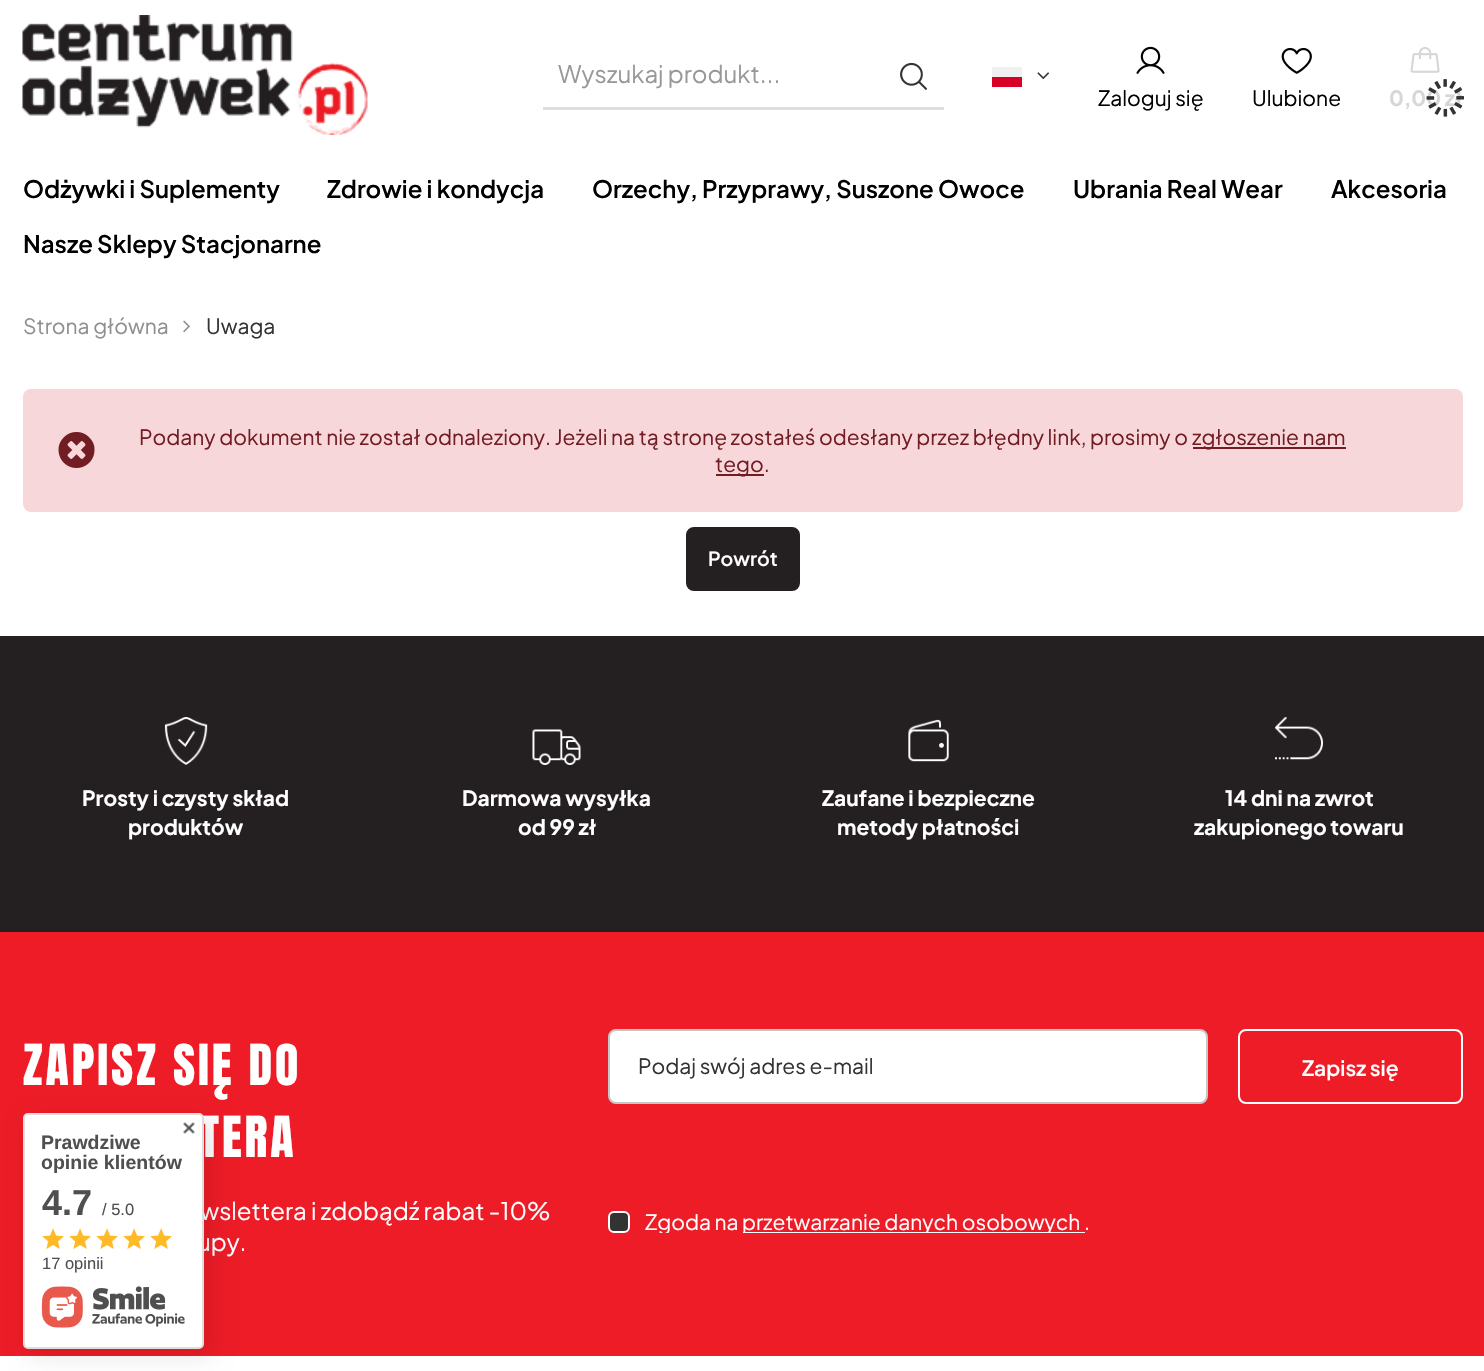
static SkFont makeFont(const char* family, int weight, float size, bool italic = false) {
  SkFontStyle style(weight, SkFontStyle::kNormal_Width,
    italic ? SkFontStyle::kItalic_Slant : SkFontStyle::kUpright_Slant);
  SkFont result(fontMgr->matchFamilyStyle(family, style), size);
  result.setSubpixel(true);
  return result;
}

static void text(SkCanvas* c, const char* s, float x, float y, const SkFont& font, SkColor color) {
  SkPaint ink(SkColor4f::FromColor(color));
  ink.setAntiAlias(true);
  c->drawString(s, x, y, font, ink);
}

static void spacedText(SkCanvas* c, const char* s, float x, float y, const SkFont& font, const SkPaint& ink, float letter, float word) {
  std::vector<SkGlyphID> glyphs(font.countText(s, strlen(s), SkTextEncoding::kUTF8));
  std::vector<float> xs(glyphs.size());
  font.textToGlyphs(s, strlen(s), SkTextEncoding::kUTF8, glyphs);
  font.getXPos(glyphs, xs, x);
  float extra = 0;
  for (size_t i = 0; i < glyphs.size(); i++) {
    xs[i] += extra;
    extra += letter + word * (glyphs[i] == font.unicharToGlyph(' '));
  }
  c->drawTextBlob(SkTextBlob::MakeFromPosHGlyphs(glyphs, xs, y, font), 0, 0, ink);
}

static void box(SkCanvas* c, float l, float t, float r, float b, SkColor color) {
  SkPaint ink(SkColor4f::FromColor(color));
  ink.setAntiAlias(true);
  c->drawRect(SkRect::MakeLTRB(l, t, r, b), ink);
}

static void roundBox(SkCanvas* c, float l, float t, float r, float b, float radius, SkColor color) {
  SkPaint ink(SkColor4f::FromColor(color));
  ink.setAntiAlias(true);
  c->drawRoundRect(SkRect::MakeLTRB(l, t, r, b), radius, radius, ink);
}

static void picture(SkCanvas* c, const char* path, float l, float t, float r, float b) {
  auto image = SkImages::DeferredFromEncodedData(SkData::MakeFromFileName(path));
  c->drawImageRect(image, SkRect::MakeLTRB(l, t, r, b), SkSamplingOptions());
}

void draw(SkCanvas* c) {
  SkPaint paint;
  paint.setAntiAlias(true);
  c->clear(0xffffffff);
  picture(c, "img_01.png", 22, 15, 368, 135);
  box(c, 543, 107, 944, 110, 0xffdedede);
  SkFont face1 = makeFont("Plus Jakarta Sans", 400, 24);
  text(c, "Wyszukaj produkt...", 558, 83, face1, 0xff989898);
  picture(c, "img_02.png", 900, 62, 927, 90);
  box(c, 992, 67, 1022, 77, 0xfff0f0f0);
  box(c, 992, 77, 1022, 87, 0xffd80027);
  picture(c, "img_03.png", 1037, 72, 1049, 80);
  picture(c, "img_04.png", 1136, 46, 1165, 74);
  SkFont face2 = makeFont("Plus Jakarta Sans", 400, 21);
  text(c, "Zaloguj się", 1098, 106, face2, 0xff000000);
  picture(c, "img_05.png", 1281, 47, 1312, 74);
  text(c, "Ulubione", 1252, 106, face2, 0xff000000);
  SkFont face3 = makeFont("Plus Jakarta Sans", 700, 21);
  text(c, "0,00 zł", 1389, 106, face3, 0xffd6d6d6);
  picture(c, "img_06.png", 1426, 79, 1464, 117);
  picture(c, "img_07.png", 1410, 46, 1440, 73);
  SkFont face4 = makeFont("Plus Jakarta Sans", 600, 24);
  text(c, "Odżywki i Suplementy", 23, 198, face4, 0xff000000);
  text(c, "Zdrowie i kondycja", 327, 198, face4, 0xff000000);
  text(c, "Orzechy, Przyprawy, Suszone Owoce", 592, 198, face4, 0xff000000);
  text(c, "Ubrania Real Wear", 1073, 198, face4, 0xff000000);
  text(c, "Akcesoria", 1331, 198, face4, 0xff000000);
  text(c, "Nasze Sklepy Stacjonarne", 23, 253, face4, 0xff000000);
  text(c, "Strona główna", 23, 334, face2, 0xff8f8f8f);
  picture(c, "img_08.png", 183, 320, 190, 333);
  text(c, "Uwaga", 206, 334, face2, 0xff333333);
  roundBox(c, 23, 389, 1463, 512, 8, 0xfff8d7da);
  picture(c, "img_09.png", 58, 432, 95, 468);
  text(c, "Podany dokument nie został odnaleziony. Jeżeli na tą stronę zostałeś odesłany przez błędny link, prosimy o", 139, 445, face2, 0xff721c24);
  box(c, 1193, 447, 1346, 449, 0xff721c24);
  text(c, "zgłoszenie nam", 1192, 445, face2, 0xff721c24);
  box(c, 716, 474, 764, 476, 0xff721c24);
  text(c, "tego.", 715, 472, face2, 0xff721c24);
  paint.setColor(0xff242021);
  c->drawRoundRect(SkRect::MakeLTRB(687, 528, 799, 590), 7, 7, paint);
  paint.setStyle(SkPaint::kStroke_Style);
  paint.setStrokeWidth(2);
  c->drawRoundRect(SkRect::MakeLTRB(687, 528, 799, 590), 7, 7, paint);
  SkFont face5 = makeFont("Plus Jakarta Sans", 600, 19.5f);
  text(c, "Powrót", 708, 566, face5, 0xffffffff);
  box(c, 0, 636, 1484, 932, 0xff242021);
  picture(c, "img_10.png", 164, 717, 208, 765);
  text(c, "Prosty i czysty skład", 82, 806, face3, 0xffffffff);
  text(c, "produktów", 128, 835, face3, 0xffffffff);
  picture(c, "img_11.png", 532, 729, 581, 765);
  text(c, "Darmowa wysyłka", 462, 806, face3, 0xffffffff);
  text(c, "od 99 zł", 518, 835, face3, 0xffffffff);
  picture(c, "img_12.png", 908, 719, 949, 762);
  text(c, "Zaufane i bezpieczne", 822, 806, face3, 0xffffffff);
  text(c, "metody płatności", 837, 835, face3, 0xffffffff);
  picture(c, "img_13.png", 1275, 717, 1323, 760);
  text(c, "14 dni na zwrot", 1225, 806, face3, 0xffffffff);
  text(c, "zakupionego towaru", 1194, 835, face3, 0xffffffff);
  box(c, 0, 932, 1484, 1356, 0xffed1c27);
  SkFont face6 = makeFont("Anton", 400, 48);
  paint.setStyle(SkPaint::kFill_Style);
  paint.setColor(0xffffffff);
  spacedText(c, "ZAPISZ SIĘ DO", 23, 1085, face6, paint, 2.9f, 0);
  spacedText(c, "TERA", 200, 1157, face6, paint, 2.9f, 0);
  text(c, "wslettera i zdobądź rabat -10%", 200, 1220, face1, 0xffffffff);
  text(c, "upy.", 197, 1251, face1, 0xffffffff);
  c->drawRoundRect(SkRect::MakeLTRB(609, 1030, 1207, 1103), 7, 7, paint);
  paint.setStyle(SkPaint::kStroke_Style);
  paint.setColor(0xffc4c7c8);
  c->drawRoundRect(SkRect::MakeLTRB(609, 1030, 1207, 1103), 7, 7, paint);
  text(c, "Podaj swój adres e-mail", 638, 1074, face2, 0xff333333);
  paint.setColor(0xffffffff);
  c->drawRoundRect(SkRect::MakeLTRB(1239, 1030, 1462, 1103), 7, 7, paint);
  SkFont face7 = makeFont("Plus Jakarta Sans", 600, 21);
  text(c, "Zapisz się", 1302, 1076, face7, 0xffffffff);
  paint.setStyle(SkPaint::kFill_Style);
  paint.setColor(0xff333333);
  c->drawRoundRect(SkRect::MakeLTRB(609, 1212, 629, 1232), 5, 5, paint);
  paint.setStyle(SkPaint::kStroke_Style);
  paint.setColor(0xffffffff);
  c->drawRoundRect(SkRect::MakeLTRB(609, 1212, 629, 1232), 5, 5, paint);
  c->save();
  c->clipRect(SkRect::MakeLTRB(608, 1209, 1098, 1233));
  text(c, "Zgoda na", 645, 1230, face2, 0xffffffff);
  c->restore();
  box(c, 743, 1232, 1085, 1233, 0xffffffff);
  c->save();
  c->clipRect(SkRect::MakeLTRB(608, 1209, 1098, 1233));
  text(c, "przetwarzanie danych osobowych", 742, 1230, face2, 0xffffffff);
  c->restore();
  text(c, ".", 1084, 1230, face2, 0xffffffff);
  paint.setStyle(SkPaint::kFill_Style);
  paint.setColor(0x1a000000);
  paint.setMaskFilter(SkMaskFilter::MakeBlur(kNormal_SkBlurStyle, 11));
  c->drawRoundRect(SkRect::MakeLTRB(30, 1121, 212, 1356), 5, 5, paint);
  paint.setMaskFilter(nullptr);
  paint.setColor(0xffffffff);
  c->drawRoundRect(SkRect::MakeLTRB(24, 1114, 203, 1348), 4, 4, paint);
  paint.setStyle(SkPaint::kStroke_Style);
  paint.setColor(0xffdedede);
  c->drawRoundRect(SkRect::MakeLTRB(24, 1114, 203, 1348), 4, 4, paint);
  picture(c, "img_14.png", 183, 1122, 195, 1134);
  SkFont face8 = makeFont("Liberation Sans", 700, 19.5f);
  text(c, "Prawdziwe", 41, 1149, face8, 0xff4f4f4f);
  text(c, "opinie klientów", 41, 1169, face8, 0xff4f4f4f);
  SkFont face9 = makeFont("Liberation Sans", 700, 36);
  text(c, "4.7", 42, 1215, face9, 0xff4f4f4f);
  SkFont face10 = makeFont("Liberation Sans", 400, 16.5f);
  text(c, "/ 5.0", 102, 1215, face10, 0xff4f4f4f);
  picture(c, "img_15.png", 42, 1228, 64, 1249);
  picture(c, "img_15.png", 69, 1228, 91, 1249);
  picture(c, "img_15.png", 96, 1228, 118, 1249);
  picture(c, "img_15.png", 123, 1228, 145, 1249);
  picture(c, "img_15.png", 150, 1228, 172, 1249);
  text(c, "17 opinii", 42, 1269, face10, 0xff4f4f4f);
  picture(c, "img_16.png", 41, 1286, 185, 1328);
}
